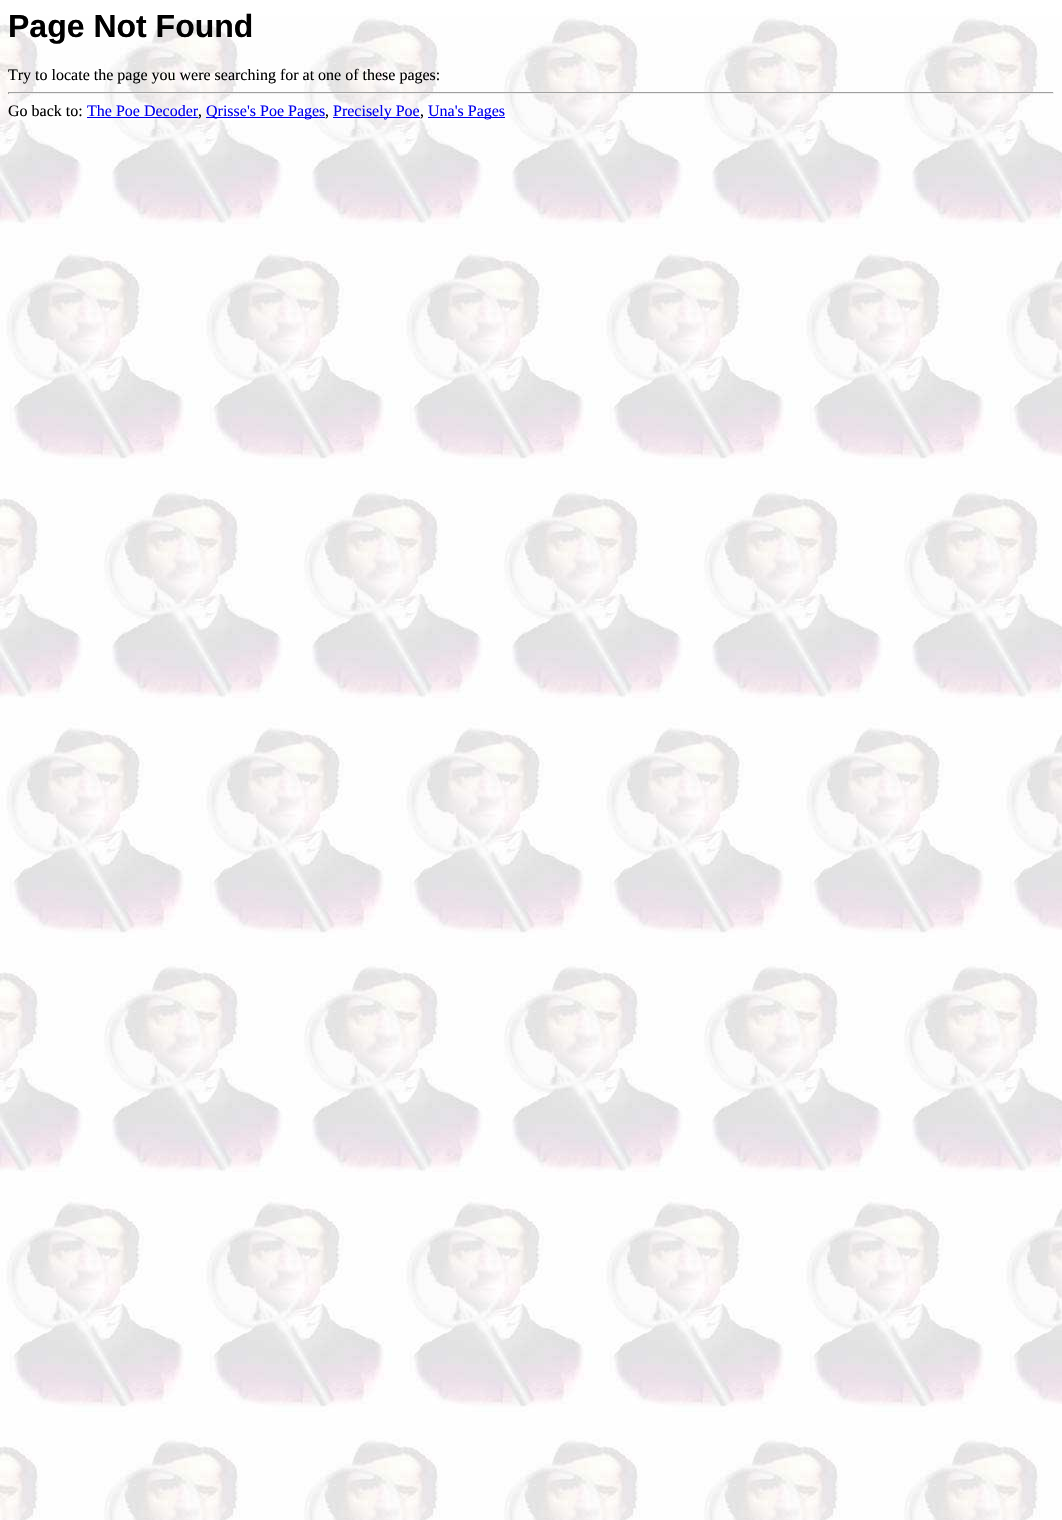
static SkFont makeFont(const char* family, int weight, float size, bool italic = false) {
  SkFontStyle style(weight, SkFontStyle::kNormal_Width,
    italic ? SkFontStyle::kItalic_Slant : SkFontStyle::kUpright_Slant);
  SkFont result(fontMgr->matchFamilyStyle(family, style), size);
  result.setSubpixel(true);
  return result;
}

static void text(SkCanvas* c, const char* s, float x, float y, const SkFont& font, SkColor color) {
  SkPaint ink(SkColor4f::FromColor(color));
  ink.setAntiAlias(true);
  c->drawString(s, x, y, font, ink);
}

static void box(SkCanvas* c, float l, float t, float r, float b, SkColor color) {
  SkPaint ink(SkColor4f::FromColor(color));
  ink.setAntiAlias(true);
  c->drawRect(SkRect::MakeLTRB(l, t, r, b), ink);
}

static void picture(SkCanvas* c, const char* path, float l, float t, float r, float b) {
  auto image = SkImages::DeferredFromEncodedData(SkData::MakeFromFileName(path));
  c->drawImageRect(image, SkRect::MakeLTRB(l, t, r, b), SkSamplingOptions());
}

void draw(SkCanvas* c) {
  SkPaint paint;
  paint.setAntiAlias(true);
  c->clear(0xffffffff);
  picture(c, "img_01.png", 0, 16, 1062, 1520);
  SkFont face1 = makeFont("Liberation Sans", 700, 32);
  text(c, "Page Not Found", 8, 37, face1, 0xff000000);
  SkFont face2 = makeFont("Liberation Serif", 400, 16);
  text(c, "Try to locate the page you were searching for at one of these pages:", 8, 80, face2, 0xff000000);
  box(c, 8, 92, 1054, 93, 0xff9f9f9f);
  box(c, 1053, 92, 1054, 94, 0xffeeeeee);
  box(c, 8, 93, 1054, 94, 0xffeeeeee);
  box(c, 8, 92, 9, 94, 0xff9f9f9f);
  text(c, "Go back to:", 8, 116, face2, 0xff000000);
  text(c, "The Poe Decoder", 87, 116, face2, 0xff0000ee);
  box(c, 87, 117, 198, 118, 0xff0000ee);
  text(c, ",", 198, 116, face2, 0xff000000);
  box(c, 206, 117, 325, 118, 0xff0000ee);
  text(c, "Qrisse's Poe Pages", 206, 116, face2, 0xff0000ee);
  text(c, ",", 325, 116, face2, 0xff000000);
  box(c, 333, 117, 420, 118, 0xff0000ee);
  text(c, "Precisely Poe", 333, 116, face2, 0xff0000ee);
  text(c, ",", 420, 116, face2, 0xff000000);
  box(c, 428, 117, 505, 118, 0xff0000ee);
  text(c, "Una's Pages", 428, 116, face2, 0xff0000ee);
}
